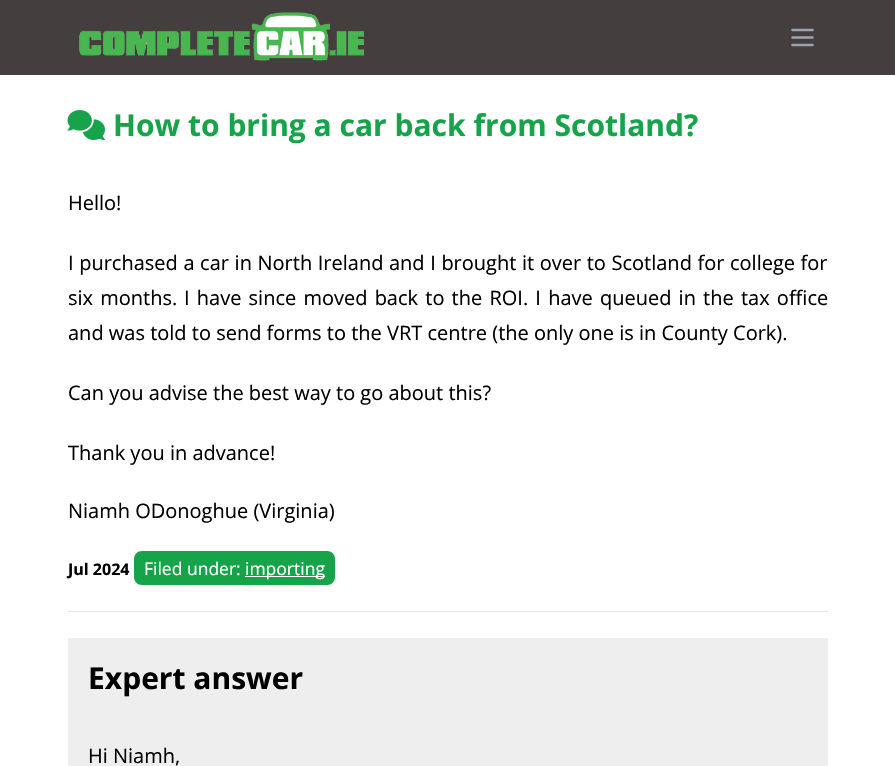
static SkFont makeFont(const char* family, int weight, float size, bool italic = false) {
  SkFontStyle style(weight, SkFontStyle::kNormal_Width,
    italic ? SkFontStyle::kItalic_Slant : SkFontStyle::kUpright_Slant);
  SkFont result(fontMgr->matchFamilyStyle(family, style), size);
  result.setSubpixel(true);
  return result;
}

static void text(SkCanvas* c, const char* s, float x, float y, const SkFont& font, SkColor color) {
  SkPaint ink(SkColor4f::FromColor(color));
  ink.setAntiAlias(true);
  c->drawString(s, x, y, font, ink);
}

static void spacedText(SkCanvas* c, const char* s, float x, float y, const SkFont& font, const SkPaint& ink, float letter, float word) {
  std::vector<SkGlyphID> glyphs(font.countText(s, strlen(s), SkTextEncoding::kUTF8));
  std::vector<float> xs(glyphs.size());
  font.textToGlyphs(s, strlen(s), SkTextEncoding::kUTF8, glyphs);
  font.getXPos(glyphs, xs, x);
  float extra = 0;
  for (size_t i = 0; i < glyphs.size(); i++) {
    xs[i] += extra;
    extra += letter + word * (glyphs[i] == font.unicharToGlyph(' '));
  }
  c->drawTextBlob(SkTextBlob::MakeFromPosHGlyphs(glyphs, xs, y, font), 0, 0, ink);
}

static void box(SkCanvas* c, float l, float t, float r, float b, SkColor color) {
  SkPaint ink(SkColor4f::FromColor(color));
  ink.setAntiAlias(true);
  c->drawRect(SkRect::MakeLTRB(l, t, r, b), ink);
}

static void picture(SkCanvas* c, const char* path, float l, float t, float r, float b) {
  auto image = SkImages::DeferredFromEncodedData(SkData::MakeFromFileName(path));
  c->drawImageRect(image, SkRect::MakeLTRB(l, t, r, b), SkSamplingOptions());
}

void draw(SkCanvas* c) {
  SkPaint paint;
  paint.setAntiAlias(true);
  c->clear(0xffffffff);
  box(c, 0, 0, 895, 75, 0xff443e3e);
  picture(c, "img_01.png", 79, 12, 364, 61);
  paint.setStyle(SkPaint::kStroke_Style);
  paint.setStrokeWidth(2.5f);
  paint.setStrokeCap(SkPaint::kRound_Cap);
  paint.setStrokeJoin(SkPaint::kRound_Join);
  paint.setColor(0xff9ca3af);
  c->drawPath(SkPathBuilder().moveTo(792.5f, 30).lineTo(812.5f, 30).moveTo(792.5f, 37.5f).lineTo(812.5f, 37.5f).moveTo(792.5f, 45).lineTo(812.5f, 45).detach(), paint);
  picture(c, "img_02.png", 67, 110, 105, 140);
  SkFont face1 = makeFont("Open Sans", 700, 30);
  text(c, "How to bring a car back from Scotland?", 113, 136, face1, 0xff16a34a);
  SkFont face2 = makeFont("Open Sans", 400, 20);
  text(c, "Hello!", 68, 210, face2, 0xff000000);
  paint.setStyle(SkPaint::kFill_Style);
  paint.setColor(0xff000000);
  spacedText(c, "I purchased a car in North Ireland and I brought it over to Scotland for college for", 68, 270, face2, paint, 0, 0.4f);
  spacedText(c, "six months.", 68, 305, face2, paint, 0, 2);
  spacedText(c, "I have since moved back to the ROI. I have queued in the tax office", 184, 305, face2, paint, 0, 2);
  text(c, "and was told to send forms to the VRT centre (the only one is in County Cork).", 68, 340, face2, 0xff000000);
  text(c, "Can you advise the best way to go about this?", 68, 400, face2, 0xff000000);
  text(c, "Thank you in advance!", 68, 460, face2, 0xff000000);
  text(c, "Niamh ODonoghue (Virginia)", 68, 518, face2, 0xff000000);
  SkFont face3 = makeFont("Open Sans", 700, 16);
  text(c, "Jul 2024", 68, 575, face3, 0xff000000);
  paint.setColor(0xff16a34a);
  c->drawPath(SkPathBuilder().moveTo(142, 551).lineTo(245, 551).lineTo(245, 585).lineTo(142, 585).cubicTo(137.5f, 585, 134, 581.5f, 134, 577).lineTo(134, 559).cubicTo(134, 554.5f, 137.5f, 551, 142, 551).close().detach(), paint);
  SkFont face4 = makeFont("Open Sans", 400, 17.5f);
  text(c, "Filed under:", 144, 575, face4, 0xffffffff);
  c->drawPath(SkPathBuilder().moveTo(245, 551).lineTo(327, 551).cubicTo(331.5f, 551, 335, 554.5f, 335, 559).lineTo(335, 577).cubicTo(335, 581.5f, 331.5f, 585, 327, 585).lineTo(245, 585).close().detach(), paint);
  box(c, 245, 576, 325, 577, 0xffffffff);
  text(c, "importing", 245, 575, face4, 0xffffffff);
  box(c, 68, 611, 828, 612, 0xffe5e7eb);
  box(c, 68, 638, 828, 766, 0xffeeeeee);
  text(c, "Expert answer", 88, 689, face1, 0xff000000);
  text(c, "Hi Niamh,", 88, 763, face2, 0xff000000);
}
